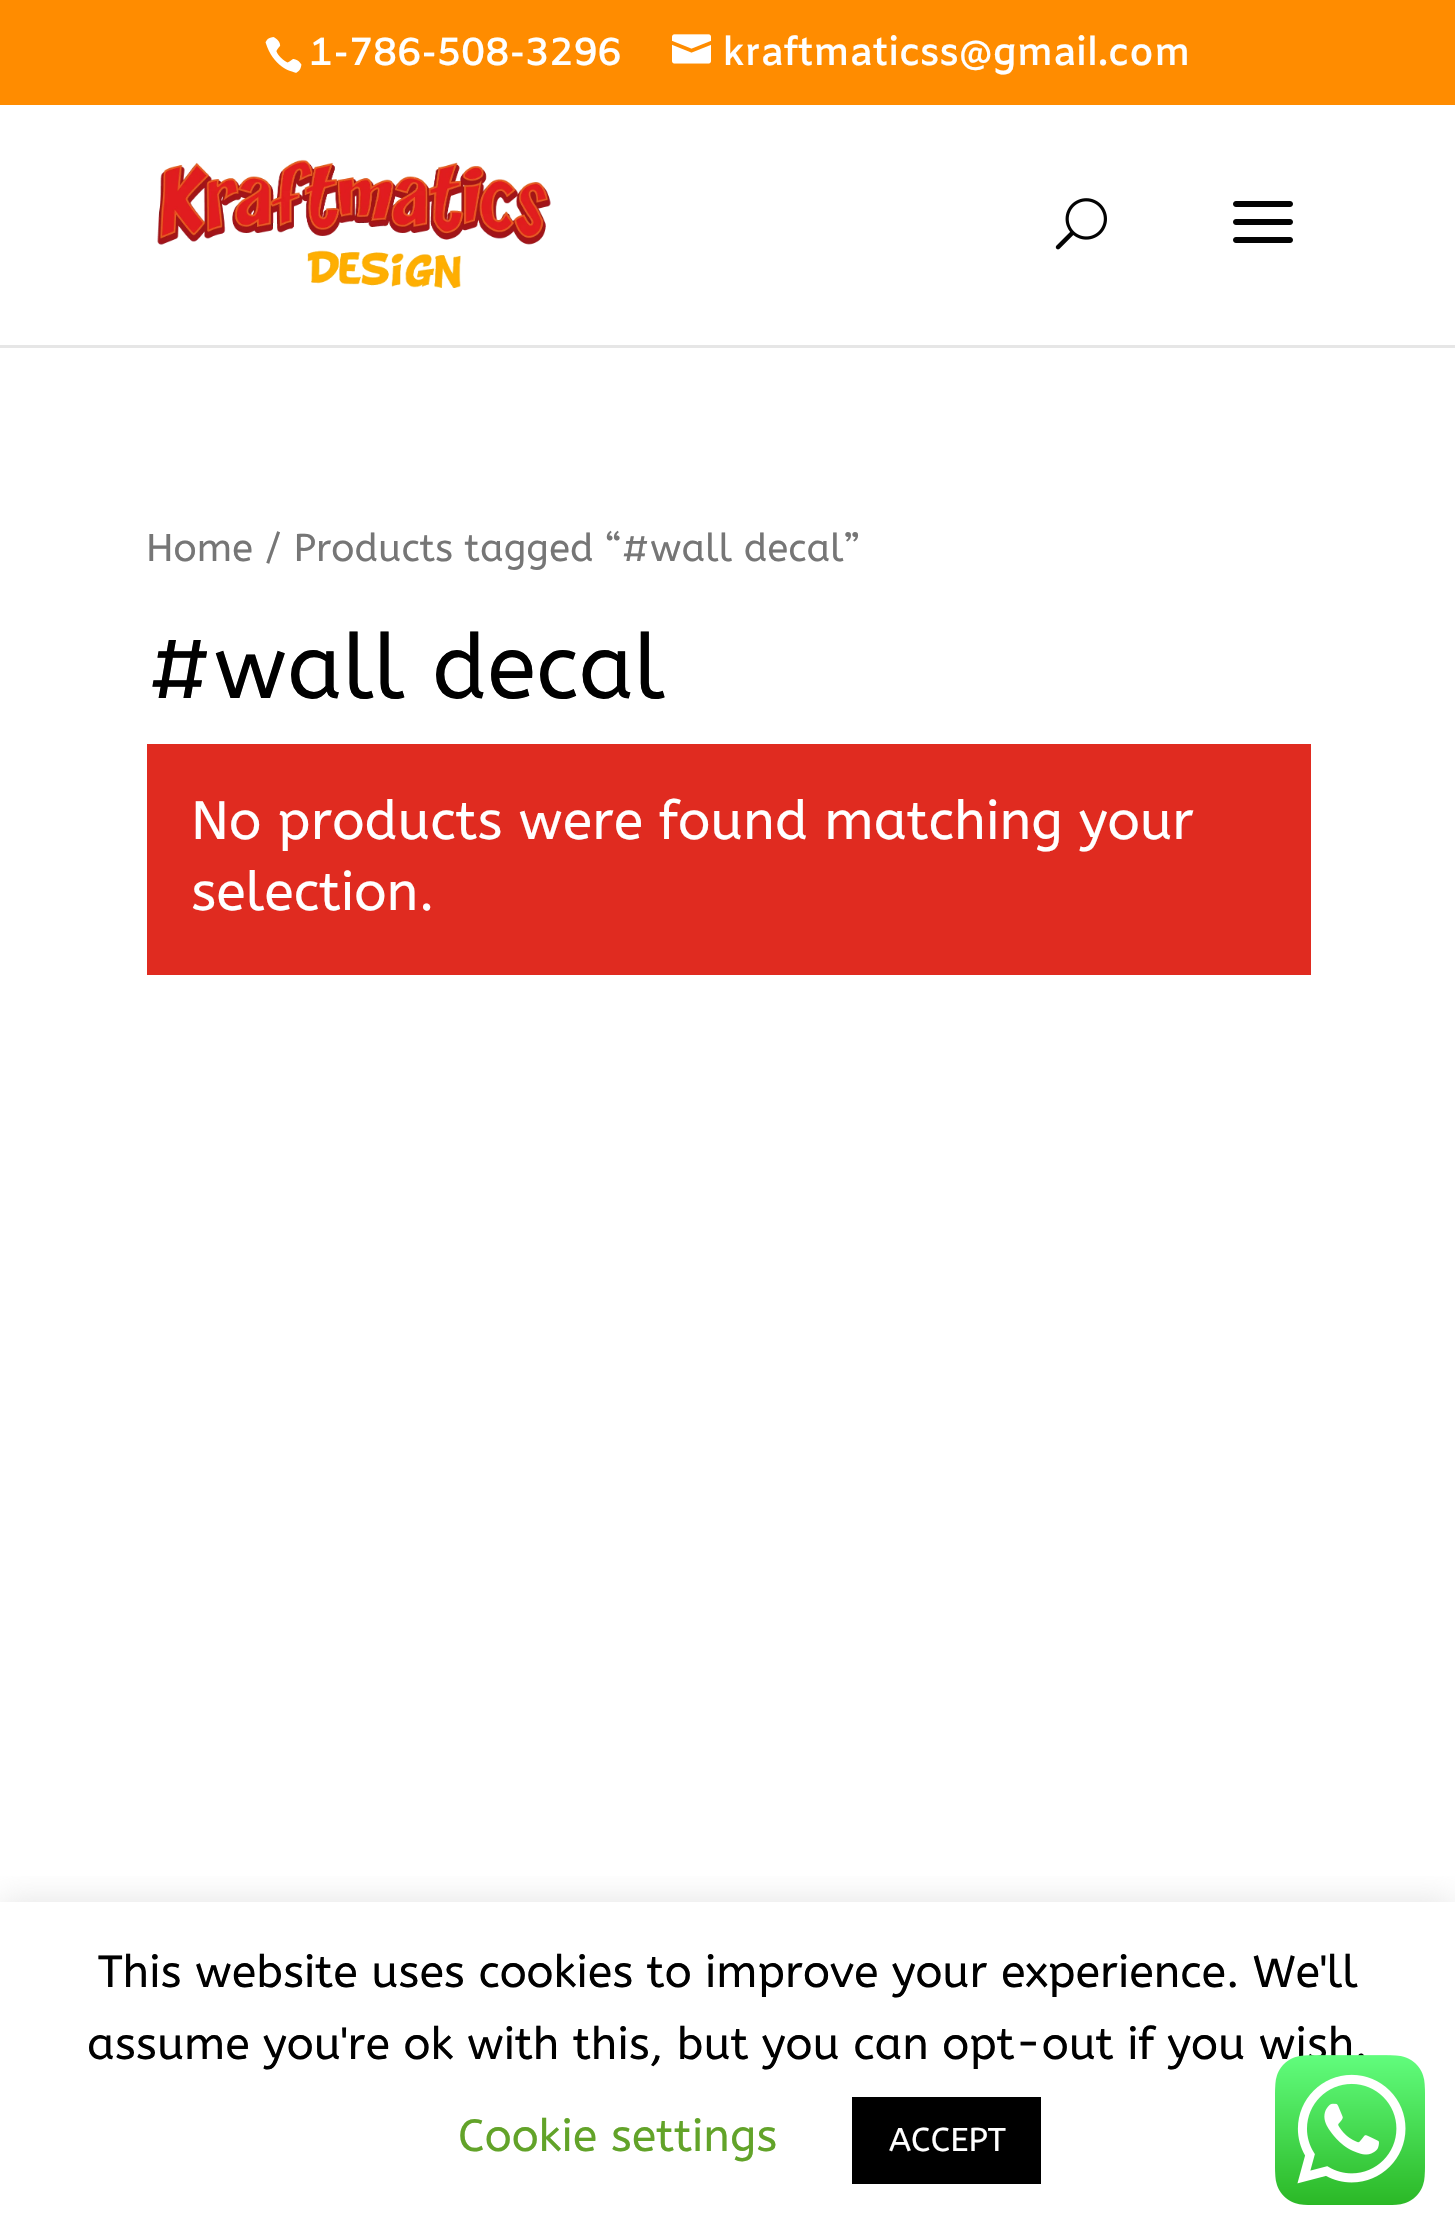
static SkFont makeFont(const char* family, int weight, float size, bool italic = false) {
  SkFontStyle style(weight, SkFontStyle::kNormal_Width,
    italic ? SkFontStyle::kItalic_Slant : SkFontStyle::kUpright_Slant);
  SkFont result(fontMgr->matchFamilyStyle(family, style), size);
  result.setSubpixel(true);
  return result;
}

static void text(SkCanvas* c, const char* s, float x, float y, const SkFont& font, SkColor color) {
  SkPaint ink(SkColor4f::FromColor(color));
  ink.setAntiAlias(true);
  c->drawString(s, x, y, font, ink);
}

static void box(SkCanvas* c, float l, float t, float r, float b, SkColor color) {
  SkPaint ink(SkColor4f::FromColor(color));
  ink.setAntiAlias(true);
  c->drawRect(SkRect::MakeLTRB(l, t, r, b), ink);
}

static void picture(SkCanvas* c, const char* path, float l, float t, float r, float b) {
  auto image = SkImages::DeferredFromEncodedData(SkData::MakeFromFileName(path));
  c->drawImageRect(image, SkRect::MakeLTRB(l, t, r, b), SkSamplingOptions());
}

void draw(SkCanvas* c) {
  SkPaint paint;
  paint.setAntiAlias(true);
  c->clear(0xffffffff);
  box(c, 0, 0, 1455, 105, 0xffff8c00);
  picture(c, "img_01.png", 265, 37, 302, 73);
  SkFont face1 = makeFont("Amiko", 600, 39);
  text(c, "1-786-508-3296", 309, 65, face1, 0xffffffff);
  picture(c, "img_02.png", 672, 34, 711, 64);
  text(c, "kraftmaticss@gmail.com", 722, 65, face1, 0xffffffff);
  box(c, 0, 345, 1455, 348, 0xffe6e6e6);
  picture(c, "img_03.png", 157, 159, 551, 288);
  picture(c, "img_04.png", 1055, 198, 1107, 250);
  picture(c, "img_05.png", 1233, 201, 1293, 243);
  SkFont face2 = makeFont("ABeeZee", 400, 38.6f);
  text(c, "Home / Products tagged “#wall decal”", 146, 561, face2, 0xff767676);
  SkFont face3 = makeFont("ABeeZee", 400, 90);
  text(c, "#wall decal", 146, 698, face3, 0xff000000);
  box(c, 147, 744, 1311, 975, 0xffe02b20);
  SkFont face4 = makeFont("ABeeZee", 400, 54);
  text(c, "No products were found matching your", 191, 839, face4, 0xffffffff);
  text(c, "selection.", 191, 910, face4, 0xffffffff);
  c->save();
  c->clipRect(SkRect::MakeLTRB(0, 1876, 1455, 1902));
  paint.setColor(0x4dacabab);
  paint.setMaskFilter(SkMaskFilter::MakeBlur(kNormal_SkBlurStyle, 15));
  c->drawRect(SkRect::MakeLTRB(0, 1899, 1455, 2232), paint);
  paint.setMaskFilter(nullptr);
  c->restore();
  SkFont face5 = makeFont("ABeeZee", 400, 45);
  text(c, "This website uses cookies to improve your experience. We'll", 98, 1987, face5, 0xff000000);
  text(c, "assume you're ok with this, but you can opt-out if you wish.", 87, 2059, face5, 0xff000000);
  text(c, "Cookie settings", 458, 2151, face5, 0xff62a329);
  box(c, 852, 2097, 1041, 2184, 0xff000000);
  SkFont face6 = makeFont("ABeeZee", 400, 33);
  text(c, "ACCEPT", 889, 2151, face6, 0xffffffff);
  picture(c, "img_06.png", 1275, 2055, 1425, 2205);
}
